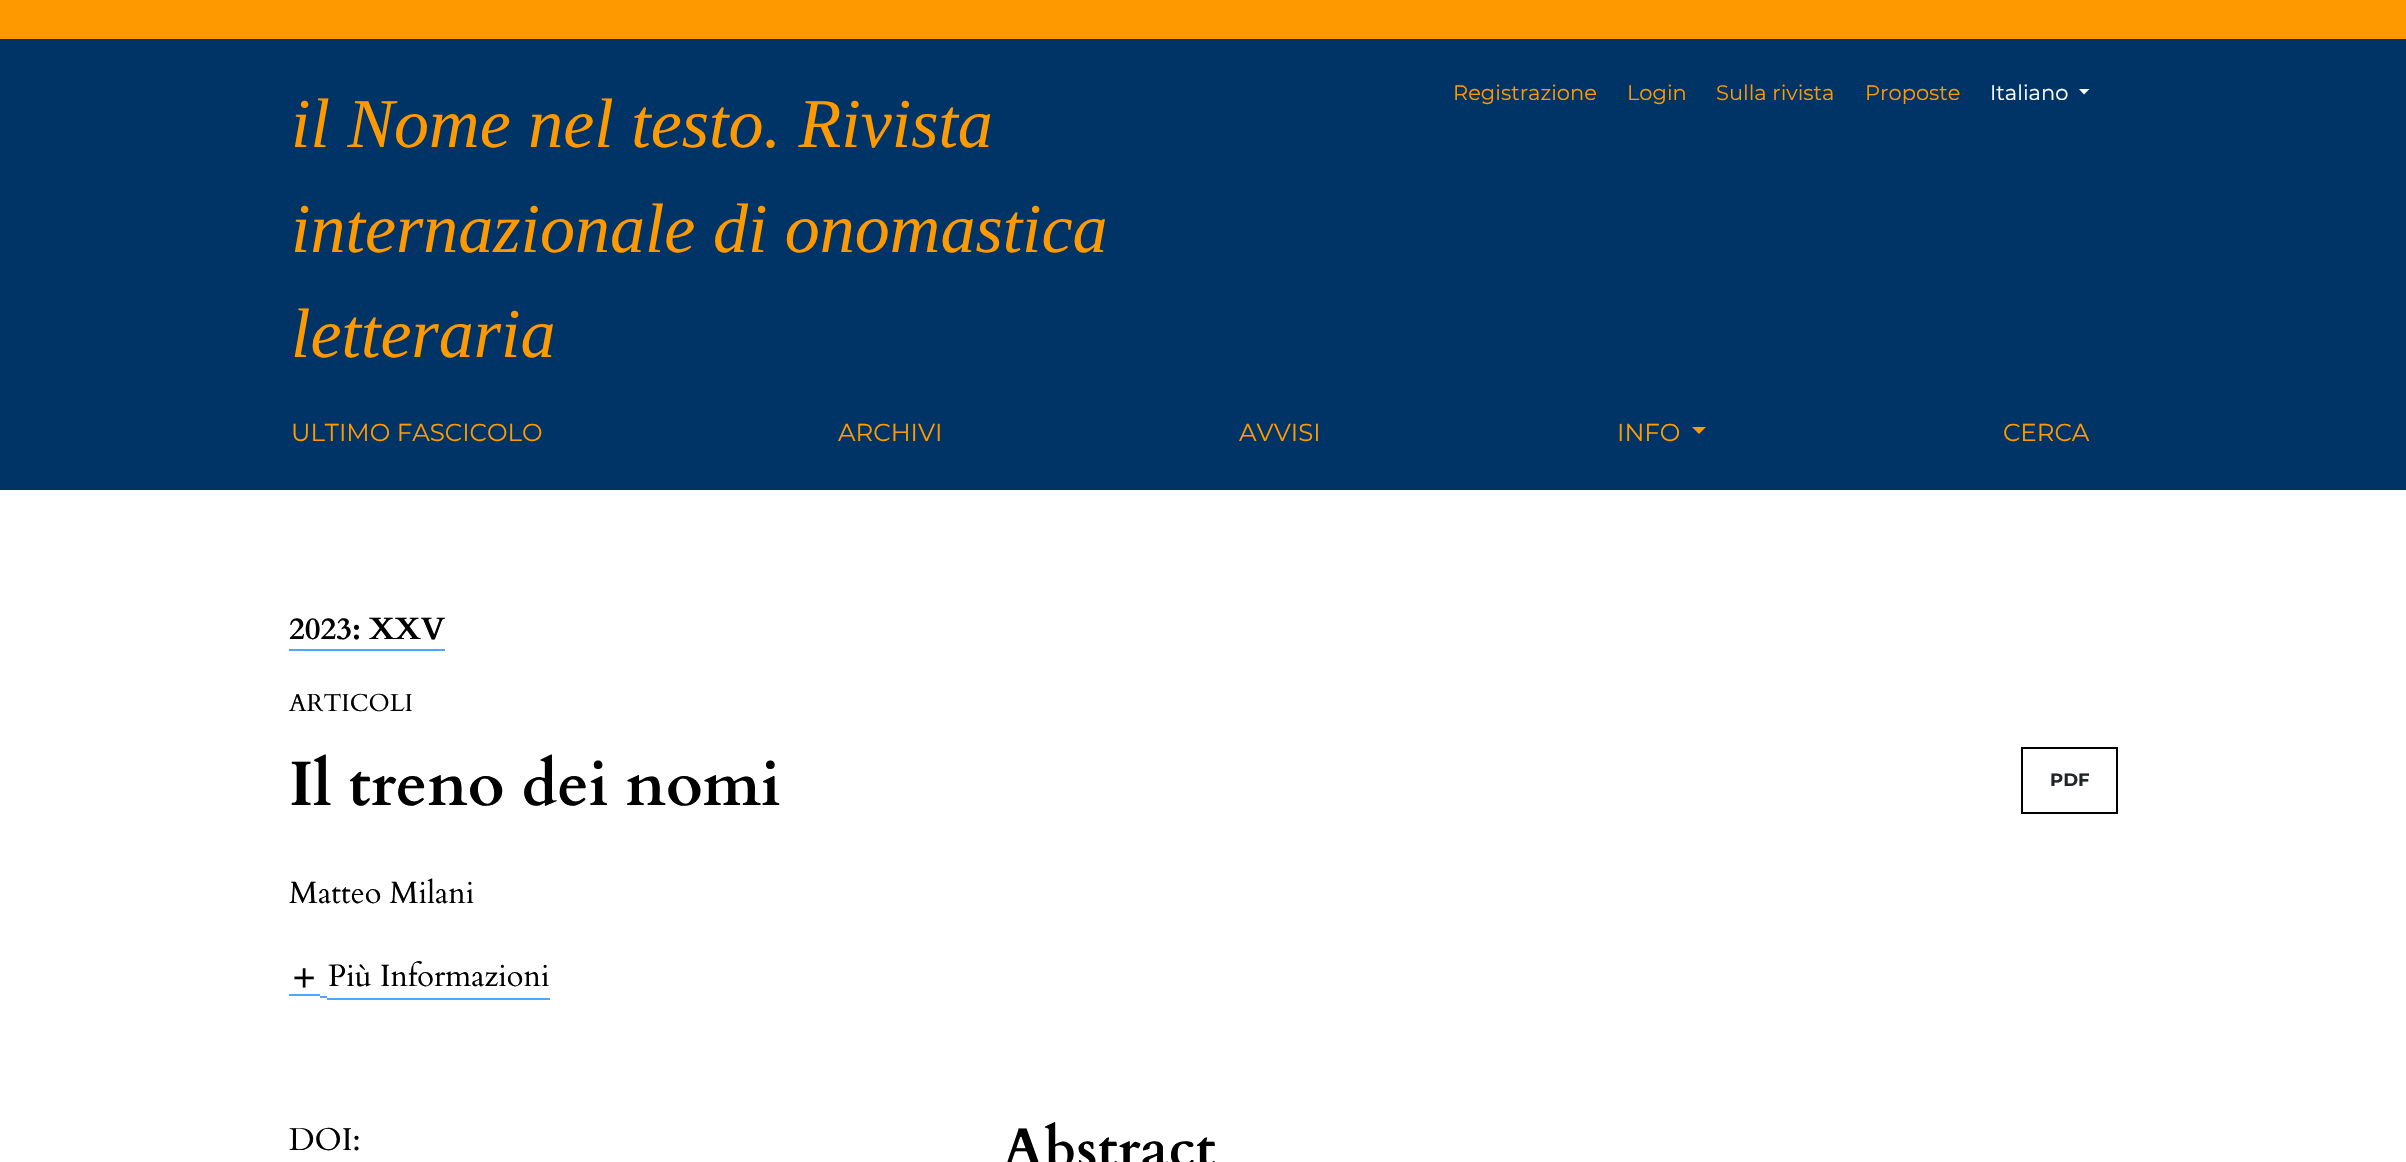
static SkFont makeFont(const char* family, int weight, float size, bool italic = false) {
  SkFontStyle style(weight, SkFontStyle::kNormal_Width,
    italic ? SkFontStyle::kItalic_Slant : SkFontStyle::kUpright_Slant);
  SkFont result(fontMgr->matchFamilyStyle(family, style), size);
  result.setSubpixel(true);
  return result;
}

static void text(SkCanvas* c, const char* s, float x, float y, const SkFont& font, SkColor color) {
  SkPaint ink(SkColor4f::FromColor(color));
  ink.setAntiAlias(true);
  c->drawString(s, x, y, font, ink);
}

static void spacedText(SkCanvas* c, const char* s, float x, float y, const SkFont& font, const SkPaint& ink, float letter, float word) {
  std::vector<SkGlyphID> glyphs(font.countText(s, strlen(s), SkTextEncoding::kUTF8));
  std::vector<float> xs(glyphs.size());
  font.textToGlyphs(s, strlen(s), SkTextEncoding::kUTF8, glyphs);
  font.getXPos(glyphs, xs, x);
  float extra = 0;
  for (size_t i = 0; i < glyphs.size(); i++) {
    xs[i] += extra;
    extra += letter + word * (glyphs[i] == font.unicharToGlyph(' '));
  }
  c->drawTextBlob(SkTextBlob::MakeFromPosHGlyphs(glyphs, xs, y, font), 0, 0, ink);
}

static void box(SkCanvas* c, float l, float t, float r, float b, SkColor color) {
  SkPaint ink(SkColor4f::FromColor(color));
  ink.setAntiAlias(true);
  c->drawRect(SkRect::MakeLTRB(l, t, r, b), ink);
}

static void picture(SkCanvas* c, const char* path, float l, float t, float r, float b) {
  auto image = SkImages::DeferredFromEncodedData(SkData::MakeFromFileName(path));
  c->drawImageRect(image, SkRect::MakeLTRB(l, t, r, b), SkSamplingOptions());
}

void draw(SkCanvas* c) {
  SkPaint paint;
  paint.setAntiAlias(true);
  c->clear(0xffffffff);
  box(c, 0, 39, 2406, 490, 0xff003366);
  box(c, 0, 0, 2406, 39, 0xffff9900);
  SkFont face1 = makeFont("Montserrat", 400, 21);
  text(c, "Registrazione", 1453, 100, face1, 0xffff9900);
  text(c, "Login", 1627, 100, face1, 0xffff9900);
  text(c, "Sulla rivista", 1716, 100, face1, 0xffff9900);
  text(c, "Proposte", 1865, 100, face1, 0xffff9900);
  text(c, "Italiano", 1990, 100, face1, 0xffffffff);
  paint.setColor(0xffffffff);
  c->drawPath(SkPathBuilder().moveTo(2079, 89).lineTo(2089.5f, 89).lineTo(2084, 94.5f).close().detach(), paint);
  SkFont face2 = makeFont("Liberation Serif", 400, 70, true);
  text(c, "il Nome nel testo. Rivista", 291, 147, face2, 0xffff9900);
  text(c, "internazionale di onomastica", 291, 252, face2, 0xffff9900);
  text(c, "letteraria", 291, 357, face2, 0xffff9900);
  SkFont face3 = makeFont("Montserrat", 400, 24.5f);
  text(c, "ULTIMO FASCICOLO", 291, 441, face3, 0xffff9900);
  text(c, "ARCHIVI", 838, 441, face3, 0xffff9900);
  text(c, "AVVISI", 1239, 441, face3, 0xffff9900);
  text(c, "INFO", 1617, 441, face3, 0xffff9900);
  paint.setColor(0xffff9900);
  c->drawPath(SkPathBuilder().moveTo(1692, 427).lineTo(1706, 427).lineTo(1699, 434).close().detach(), paint);
  text(c, "CERCA", 2003, 441, face3, 0xffff9900);
  SkFont face4 = makeFont("Cardo", 700, 30.75f);
  text(c, "2023: XXV", 289, 639, face4, 0xff000000);
  box(c, 289, 649, 445, 651, 0xff4da6ff);
  SkFont face5 = makeFont("Cardo", 400, 24.5f);
  text(c, "ARTICOLI", 289, 711, face5, 0xff000000);
  SkFont face6 = makeFont("Cardo", 700, 63);
  text(c, "Il treno dei nomi", 289, 805, face6, 0xff000000);
  paint.setStyle(SkPaint::kStroke_Style);
  paint.setStrokeWidth(2);
  paint.setColor(0xff000000);
  c->drawRect(SkRect::MakeLTRB(2022, 748, 2117, 813), paint);
  SkFont face7 = makeFont("Montserrat", 700, 18);
  text(c, "PDF", 2050, 786, face7, 0xff212529);
  SkFont face8 = makeFont("Cardo", 400, 30.75f);
  text(c, "Matteo Milani", 289, 903, face8, 0xff000000);
  box(c, 289, 994, 320, 996, 0xff4da6ff);
  box(c, 320, 996, 327, 998, 0xff4da6ff);
  box(c, 327, 998, 550, 1000, 0xff4da6ff);
  picture(c, "img_01.png", 294, 968, 314, 988);
  text(c, "Più Informazioni", 328, 986, face8, 0xff000000);
  SkFont face9 = makeFont("Cardo", 400, 31.5f);
  text(c, "DOI:", 289, 1150, face9, 0xff000000);
  SkFont face10 = makeFont("Cardo", 700, 56);
  paint.setStyle(SkPaint::kFill_Style);
  spacedText(c, "Abstract", 1002, 1167, face10, paint, 0.25f, 0);
}
